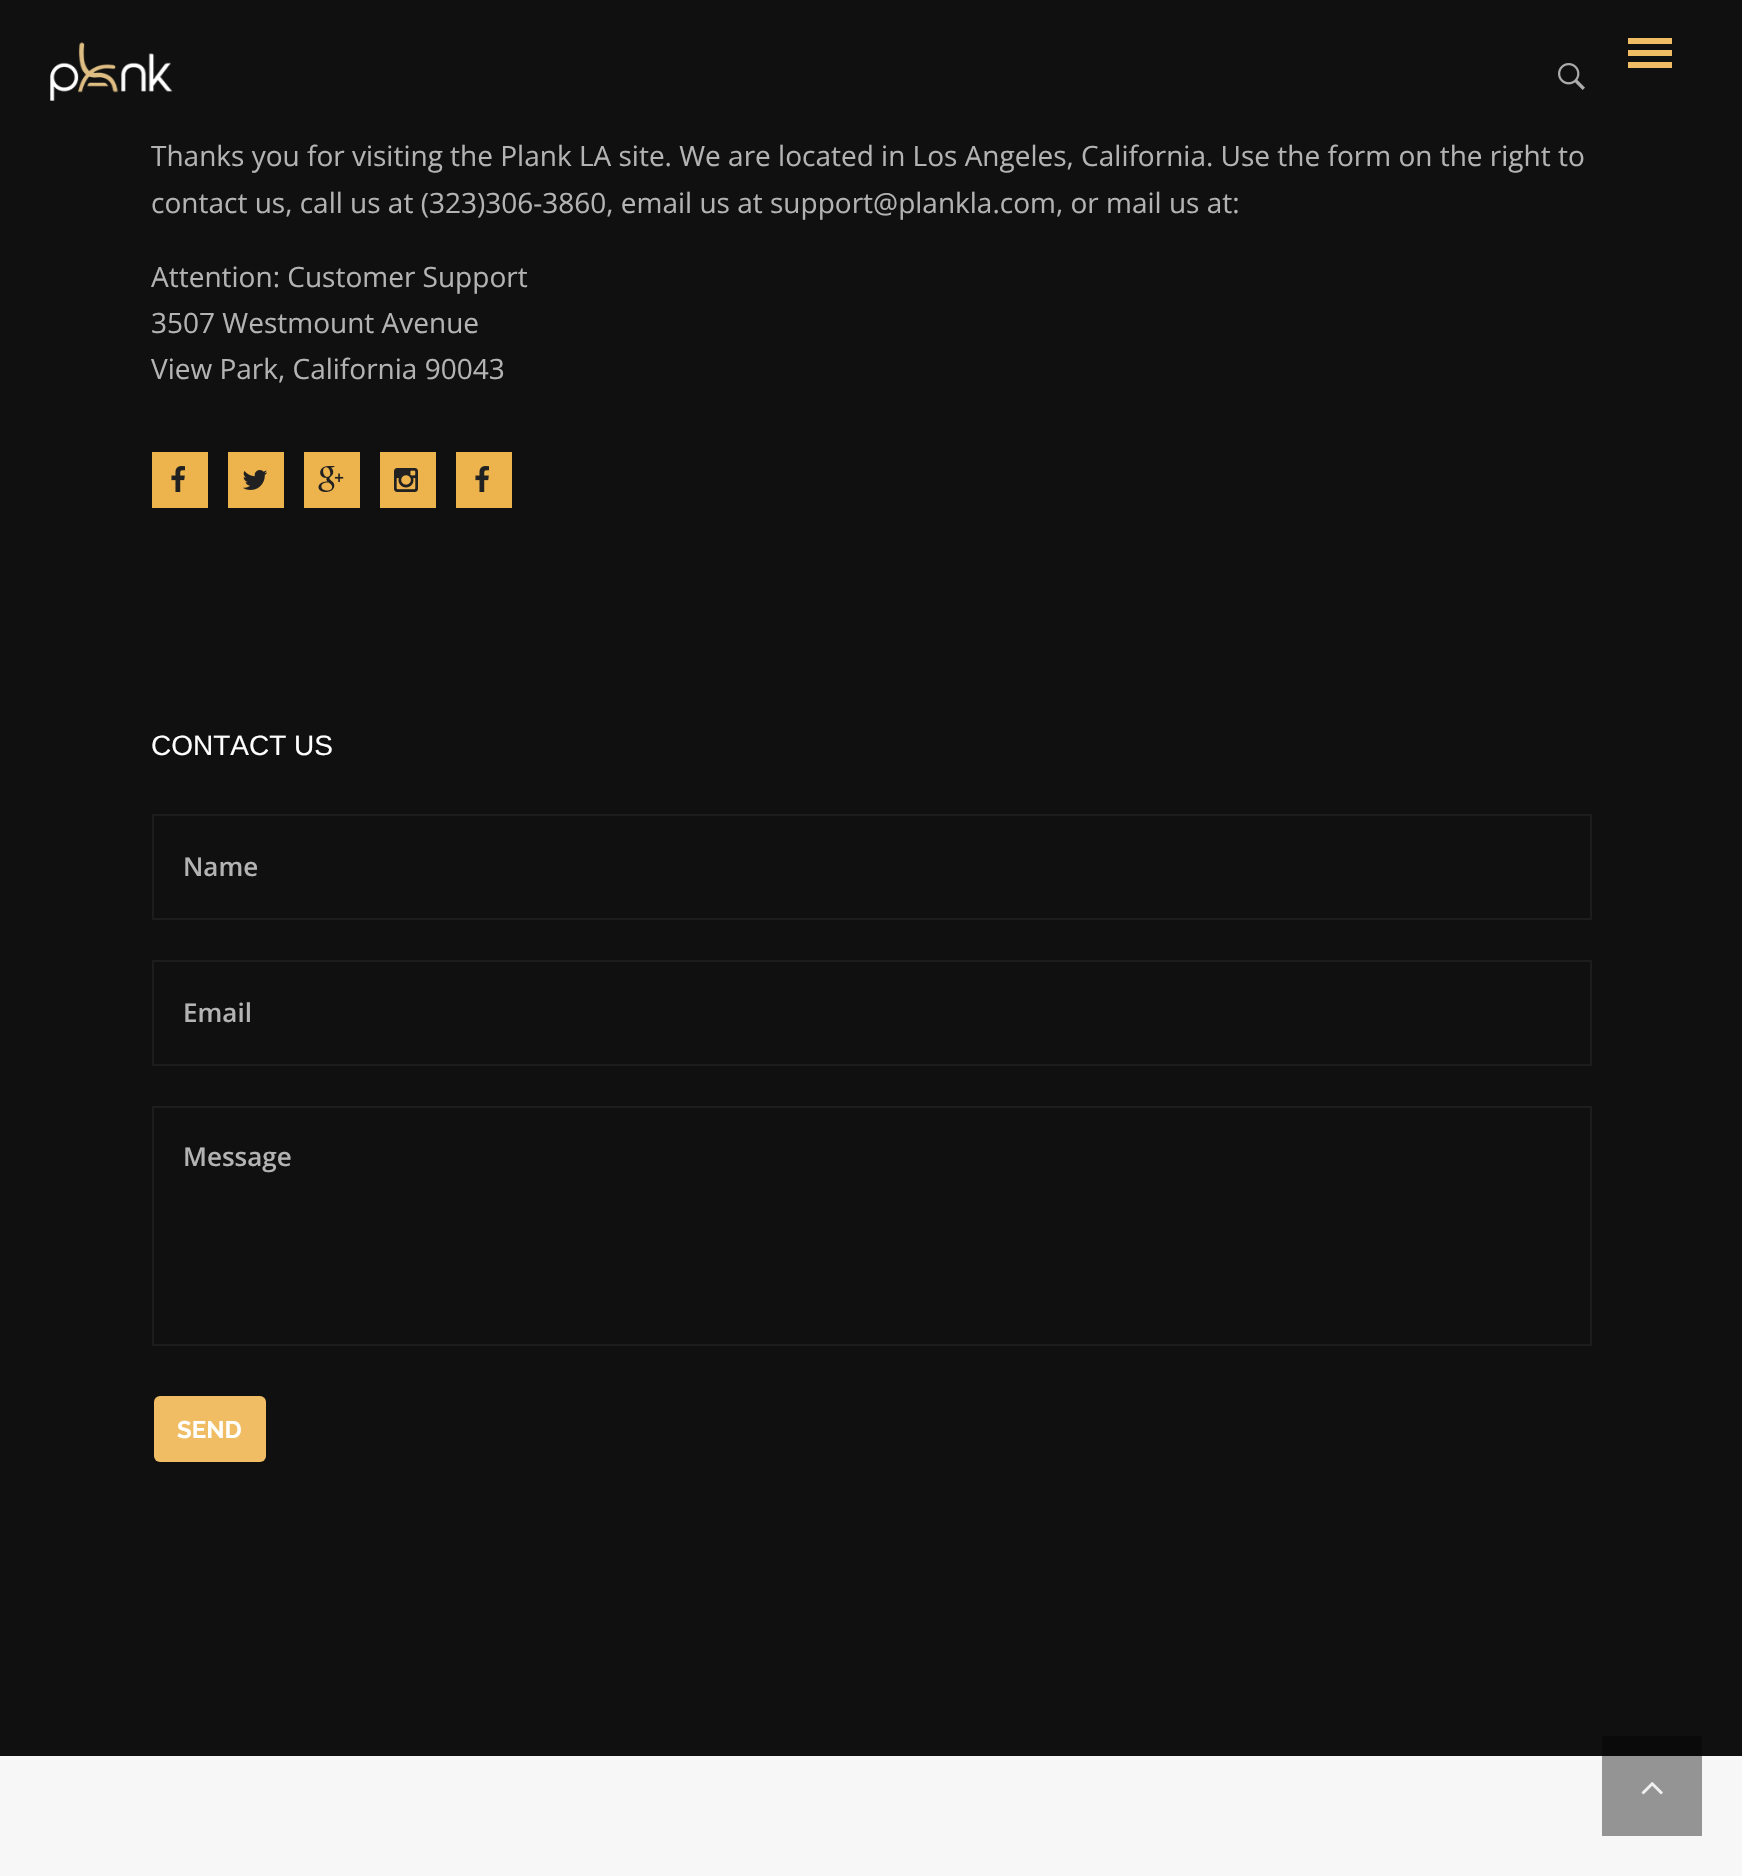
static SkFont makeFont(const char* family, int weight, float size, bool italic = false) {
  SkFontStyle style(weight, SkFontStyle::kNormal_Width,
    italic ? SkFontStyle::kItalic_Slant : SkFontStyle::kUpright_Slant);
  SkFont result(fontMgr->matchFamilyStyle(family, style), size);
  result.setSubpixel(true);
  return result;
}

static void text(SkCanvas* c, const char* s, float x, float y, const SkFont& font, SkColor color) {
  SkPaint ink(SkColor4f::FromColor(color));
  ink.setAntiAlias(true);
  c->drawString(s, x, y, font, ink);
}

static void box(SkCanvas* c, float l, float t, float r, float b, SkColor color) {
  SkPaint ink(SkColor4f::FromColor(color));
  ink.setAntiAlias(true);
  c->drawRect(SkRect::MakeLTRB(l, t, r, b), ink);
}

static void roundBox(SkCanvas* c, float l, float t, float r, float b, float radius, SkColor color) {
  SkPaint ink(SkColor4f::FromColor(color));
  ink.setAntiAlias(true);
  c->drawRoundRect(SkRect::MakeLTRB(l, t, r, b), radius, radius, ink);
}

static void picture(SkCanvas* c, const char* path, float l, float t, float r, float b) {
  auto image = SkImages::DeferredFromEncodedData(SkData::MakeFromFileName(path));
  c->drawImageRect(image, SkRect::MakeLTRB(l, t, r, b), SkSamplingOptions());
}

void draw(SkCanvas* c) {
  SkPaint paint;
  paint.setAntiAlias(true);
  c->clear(0xff101010);
  picture(c, "img_01.png", 50, 42, 173, 101);
  picture(c, "img_02.png", 1558, 63, 1585, 90);
  box(c, 1628, 62, 1672, 68, 0xfff0bd65);
  box(c, 1628, 50, 1672, 56, 0xfff0bd65);
  box(c, 1628, 38, 1672, 44, 0xfff0bd65);
  box(c, 1602, 1736, 1702, 1756, 0xff0a0a0a);
  SkFont face1 = makeFont("Open Sans", 400, 28);
  text(c, "Thanks you for visiting the Plank LA site. We are located in Los Angeles, California. Use the form on the right to", 151, 166, face1, 0xffb3b3b3);
  text(c, "contact us, call us at (323)306-3860, email us at support@plankla.com, or mail us at:", 151, 213, face1, 0xffb3b3b3);
  text(c, "Attention: Customer Support", 151, 287, face1, 0xffb3b3b3);
  text(c, "3507 Westmount Avenue", 151, 333, face1, 0xffb3b3b3);
  text(c, "View Park, California 90043", 151, 379, face1, 0xffb3b3b3);
  box(c, 152, 452, 208, 508, 0xffedb44d);
  picture(c, "img_03.png", 171, 466, 185, 492);
  box(c, 228, 452, 284, 508, 0xffedb44d);
  picture(c, "img_04.png", 242, 470, 268, 490);
  box(c, 304, 452, 360, 508, 0xffedb44d);
  picture(c, "img_05.png", 318, 466, 344, 492);
  box(c, 380, 452, 436, 508, 0xffedb44d);
  picture(c, "img_06.png", 394, 468, 418, 492);
  box(c, 456, 452, 512, 508, 0xffedb44d);
  picture(c, "img_03.png", 475, 466, 489, 492);
  SkFont face2 = makeFont("Liberation Sans", 400, 28);
  text(c, "CONTACT US", 151, 755, face2, 0xffffffff);
  paint.setStyle(SkPaint::kStroke_Style);
  paint.setStrokeWidth(2);
  paint.setColor(0xff1d1d1d);
  c->drawRect(SkRect::MakeLTRB(153, 815, 1591, 919), paint);
  SkFont face3 = makeFont("Open Sans", 600, 26);
  text(c, "Name", 183, 876, face3, 0xffb3b3b3);
  c->drawRect(SkRect::MakeLTRB(153, 961, 1591, 1065), paint);
  text(c, "Email", 183, 1022, face3, 0xffb3b3b3);
  c->drawRect(SkRect::MakeLTRB(153, 1107, 1591, 1345), paint);
  text(c, "Message", 183, 1166, face3, 0xffb3b3b3);
  roundBox(c, 154, 1396, 266, 1462, 6, 0xfff0bd65);
  SkFont face4 = makeFont("Raleway", 700, 24);
  text(c, "SEND", 177, 1438, face4, 0xffffffff);
  box(c, 0, 1756, 1742, 1876, 0xfff7f7f7);
  box(c, 1602, 1756, 1702, 1836, 0xff949494);
  picture(c, "img_07.png", 1641, 1782, 1663, 1795);
}
